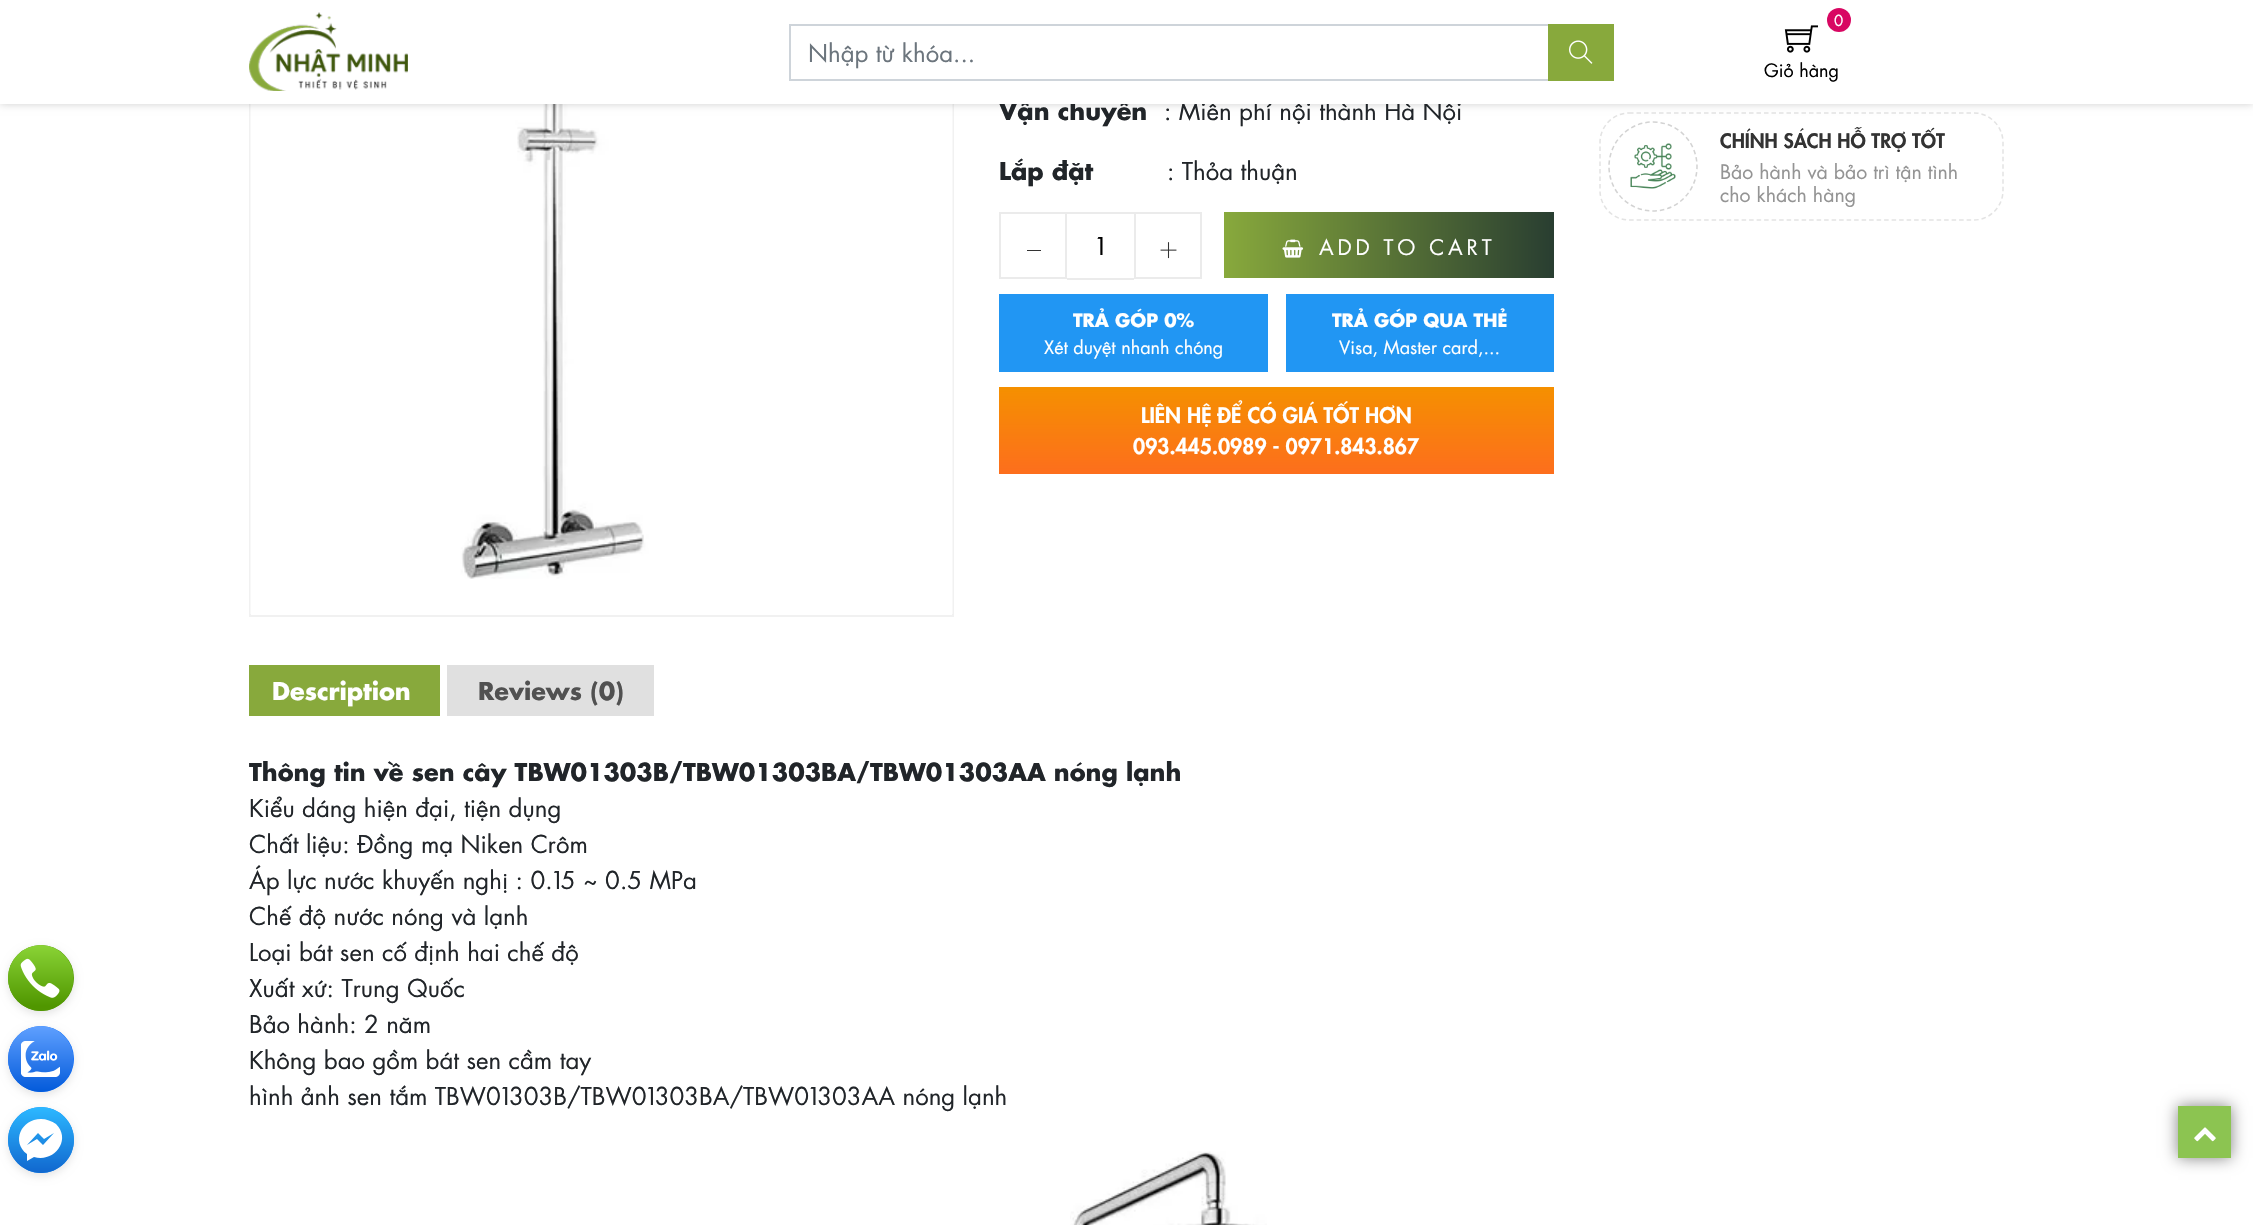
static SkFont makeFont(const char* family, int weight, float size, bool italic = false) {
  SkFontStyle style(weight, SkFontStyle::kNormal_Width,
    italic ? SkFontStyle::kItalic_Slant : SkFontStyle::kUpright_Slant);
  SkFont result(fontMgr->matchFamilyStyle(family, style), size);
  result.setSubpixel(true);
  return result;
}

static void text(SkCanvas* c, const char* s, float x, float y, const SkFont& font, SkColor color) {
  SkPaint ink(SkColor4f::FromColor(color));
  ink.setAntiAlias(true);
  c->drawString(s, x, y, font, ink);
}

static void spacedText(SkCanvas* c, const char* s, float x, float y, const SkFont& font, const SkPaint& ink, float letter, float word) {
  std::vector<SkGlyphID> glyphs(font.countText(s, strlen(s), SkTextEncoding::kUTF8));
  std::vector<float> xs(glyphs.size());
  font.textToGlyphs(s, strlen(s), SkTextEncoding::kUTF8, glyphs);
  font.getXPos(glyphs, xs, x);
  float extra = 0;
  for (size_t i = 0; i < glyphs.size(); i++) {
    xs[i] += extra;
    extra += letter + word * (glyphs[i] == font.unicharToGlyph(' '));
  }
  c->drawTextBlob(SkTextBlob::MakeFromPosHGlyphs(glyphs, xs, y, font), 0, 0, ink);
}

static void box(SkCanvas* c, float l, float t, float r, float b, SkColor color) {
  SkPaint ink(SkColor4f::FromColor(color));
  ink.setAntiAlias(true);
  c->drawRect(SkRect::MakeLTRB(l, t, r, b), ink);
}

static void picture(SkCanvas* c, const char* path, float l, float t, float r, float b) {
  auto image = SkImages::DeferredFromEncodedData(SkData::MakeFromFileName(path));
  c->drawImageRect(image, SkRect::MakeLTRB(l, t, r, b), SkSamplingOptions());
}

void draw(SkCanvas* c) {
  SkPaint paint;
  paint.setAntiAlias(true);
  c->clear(0xffffffff);
  paint.setStyle(SkPaint::kStroke_Style);
  paint.setStrokeWidth(2);
  paint.setColor(0xfff1f1f1);
  c->drawRect(SkRect::MakeLTRB(250, -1, 953, 616), paint);
  picture(c, "img_06.png", 250, 104, 953, 614);
  paint.setStrokeWidth(1.5f);
  paint.setColor(0xffe3e3e3);
  paint.setPathEffect(SkDashPathEffect::Make({{4.5f, 3}}, 0));
  c->drawPath(SkPathBuilder().moveTo(1629, 113).lineTo(1974, 113).cubicTo(1990, 113, 2003, 126.5f, 2003, 142.5f).lineTo(2003, 190.5f).cubicTo(2003, 206.5f, 1990, 220, 1974, 220).lineTo(1629, 220).cubicTo(1613, 220, 1600, 206.5f, 1600, 190.5f).lineTo(1600, 142.5f).cubicTo(1600, 126.5f, 1613, 113, 1629, 113).close().detach(), paint);
  paint.setPathEffect(nullptr);
  paint.setStyle(SkPaint::kFill_Style);
  paint.setColor(0x30000000);
  paint.setMaskFilter(SkMaskFilter::MakeBlur(kNormal_SkBlurStyle, 4));
  c->drawRect(SkRect::MakeLTRB(0, 0, 2253, 104), paint);
  paint.setMaskFilter(nullptr);
  SkFont face1 = makeFont("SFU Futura", 700, 24);
  text(c, "Vận chuyển", 999, 120, face1, 0xff212529);
  SkFont face2 = makeFont("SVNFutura", 400, 24);
  text(c, ": Miễn phí nội thành Hà Nội", 1164, 120, face2, 0xff212529);
  box(c, 0, 0, 2253, 104, 0xffffffff);
  picture(c, "img_01.png", 249, 12, 408, 91);
  paint.setStyle(SkPaint::kStroke_Style);
  paint.setStrokeWidth(2);
  paint.setColor(0xffced4da);
  c->drawRect(SkRect::MakeLTRB(790, 25, 1600, 80), paint);
  text(c, "Nhập từ khóa...", 808, 62, face2, 0xff6c757d);
  box(c, 1548, 24, 1614, 81, 0xff88a93c);
  picture(c, "img_02.png", 1569, 40, 1593, 64);
  paint.setStyle(SkPaint::kFill_Style);
  paint.setColor(0xffd80762);
  c->drawCircle(1839, 20, 12, paint);
  SkFont face3 = makeFont("SVNFutura", 400, 15);
  text(c, "0", 1834, 26, face3, 0xffffffff);
  picture(c, "img_03.png", 1784, 25, 1818, 53);
  SkFont face4 = makeFont("SVNFutura", 400, 18);
  text(c, "Giỏ hàng", 1764, 77, face4, 0xff000000);
  paint.setColor(0x1c000000);
  paint.setMaskFilter(SkMaskFilter::MakeBlur(kNormal_SkBlurStyle, 4));
  c->drawRoundRect(SkRect::MakeLTRB(8, 948, 74, 1014), 33, 33, paint);
  paint.setMaskFilter(nullptr);
  paint.setColor(0xff509600);
  c->drawCircle(41, 978, 33, paint);
  picture(c, "img_04.png", 8, 945, 74, 1011);
  paint.setColor(0x1c000000);
  paint.setMaskFilter(SkMaskFilter::MakeBlur(kNormal_SkBlurStyle, 4));
  c->drawRoundRect(SkRect::MakeLTRB(8, 1029, 74, 1095), 33, 33, paint);
  paint.setMaskFilter(nullptr);
  paint.setColor(0xff0068ff);
  c->drawCircle(41, 1059, 33, paint);
  picture(c, "img_05.png", 8, 1026, 74, 1092);
  paint.setColor(0x1c000000);
  paint.setMaskFilter(SkMaskFilter::MakeBlur(kNormal_SkBlurStyle, 4));
  c->drawRoundRect(SkRect::MakeLTRB(8, 1110, 74, 1176), 33, 33, paint);
  paint.setMaskFilter(nullptr);
  paint.setColor(0xff0084ff);
  c->drawCircle(41, 1140, 33, paint);
  {
    const SkColor colors[] = {0xff1168cf, 0xff2cb7ff};
    const float stops[] = {0, 1};
    const SkPoint ends[] = {{40, 1172}, {40, 1108}};
    paint.setShader(SkGradientShader::MakeLinear(ends, colors, stops, 2, SkTileMode::kClamp));
    paint.setAlpha(255);
  }
  c->drawPath(SkPathBuilder().moveTo(74, 1140).cubicTo(74, 1122, 59, 1107, 41, 1107).cubicTo(23, 1107, 8, 1122, 8, 1140).cubicTo(8, 1158, 23, 1173, 41, 1173).cubicTo(59, 1173, 74, 1158, 74, 1140).close().detach(), paint);
  paint.setShader(nullptr);
  paint.setColor(0xffffffff);
  c->drawPath(SkPathBuilder(SkPathFillType::kEvenOdd).moveTo(41, 1119).cubicTo(21, 1119, 11, 1142, 27, 1154).lineTo(27, 1161).lineTo(34, 1157).cubicTo(54, 1163, 72, 1140, 56, 1124).cubicTo(52, 1121, 46, 1119, 41, 1119).close().moveTo(43, 1145).lineTo(37, 1139).lineTo(27, 1145).lineTo(38, 1133).lineTo(44, 1139).lineTo(54, 1133).close().detach(), paint);
  text(c, "Lắp đặt", 999, 180, face1, 0xff212529);
  text(c, ": Thỏa thuận", 1167, 180, face2, 0xff212529);
  paint.setStyle(SkPaint::kStroke_Style);
  paint.setColor(0xffebebeb);
  c->drawRect(SkRect::MakeLTRB(1000, 213, 1066, 278), paint);
  box(c, 1027, 250, 1041, 251, 0xff333333);
  c->drawRect(SkRect::MakeLTRB(1135, 213, 1201, 278), paint);
  picture(c, "img_07.png", 1160, 242, 1177, 259);
  box(c, 1067, 212, 1134, 214, 0xffebebeb);
  box(c, 1067, 278, 1134, 280, 0xffebebeb);
  text(c, "1", 1096, 255, face2, 0xff000000);
  paint.setStyle(SkPaint::kFill_Style);
  {
    const SkColor colors[] = {0xff88a93c, 0xff293e31};
    const float stops[] = {0, 1};
    const SkPoint ends[] = {{1224, 245}, {1554, 245}};
    paint.setShader(SkGradientShader::MakeLinear(ends, colors, stops, 2, SkTileMode::kClamp));
    paint.setAlpha(255);
  }
  c->drawRect(SkRect::MakeLTRB(1224, 212, 1554, 278), paint);
  picture(c, "img_08.png", 1282, 239, 1304, 258);
  SkFont face5 = makeFont("SVNFutura", 400, 21);
  paint.setShader(nullptr);
  paint.setColor(0xffffffff);
  spacedText(c, "ADD TO CART", 1319, 255, face5, paint, 3.75f, 0);
  box(c, 999, 294, 1268, 372, 0xff2196f3);
  SkFont face6 = makeFont("SFU Futura", 700, 18);
  text(c, "TRẢ GÓP 0%", 1073, 327, face6, 0xffffffff);
  text(c, "Xét duyệt nhanh chóng", 1044, 354, face4, 0xffffffff);
  box(c, 1286, 294, 1554, 372, 0xff2196f3);
  text(c, "TRẢ GÓP QUA THẺ", 1332, 327, face6, 0xffffffff);
  text(c, "Visa, Master card,...", 1339, 354, face4, 0xffffffff);
  {
    const SkColor colors[] = {0xfff59000, 0xfffd6e1d};
    const float stops[] = {0, 1};
    const SkPoint ends[] = {{1277, 387}, {1277, 474}};
    paint.setShader(SkGradientShader::MakeLinear(ends, colors, stops, 2, SkTileMode::kClamp));
    paint.setAlpha(255);
  }
  c->drawRect(SkRect::MakeLTRB(999, 387, 1554, 474), paint);
  SkFont face7 = makeFont("SFU Futura", 900, 21);
  text(c, "LIÊN HỆ ĐỂ CÓ GIÁ TỐT HƠN", 1141, 423, face7, 0xffffffff);
  text(c, "093.445.0989 - 0971.843.867", 1133, 454, face7, 0xffffffff);
  paint.setStyle(SkPaint::kStroke_Style);
  paint.setStrokeWidth(1.5f);
  paint.setShader(nullptr);
  paint.setColor(0xffd3d3d3);
  paint.setPathEffect(SkDashPathEffect::Make({{4.5f, 3}}, 0));
  c->drawPath(SkPathBuilder().moveTo(1653, 122).cubicTo(1677.5f, 122, 1697, 142, 1697, 166.5f).cubicTo(1697, 191, 1677.5f, 211, 1653, 211).cubicTo(1628.5f, 211, 1609, 191, 1609, 166.5f).cubicTo(1609, 142, 1628.5f, 122, 1653, 122).close().detach(), paint);
  paint.setPathEffect(nullptr);
  picture(c, "img_09.png", 1630, 143, 1676, 189);
  SkFont face8 = makeFont("SFU Futura", 900, 19.5f);
  text(c, "CHÍNH SÁCH HỖ TRỢ TỐT", 1720, 148, face8, 0xff333333);
  SkFont face9 = makeFont("SVNFutura", 400, 19.5f);
  text(c, "Bảo hành và bảo trì tận tình", 1720, 179, face9, 0xff949494);
  text(c, "cho khách hàng", 1720, 202, face9, 0xff949494);
  box(c, 249, 665, 440, 716, 0xff88a93c);
  text(c, "Description", 272, 700, face1, 0xffffffff);
  box(c, 447, 665, 654, 716, 0xffe0e0e0);
  text(c, "Reviews (0)", 478, 700, face1, 0xff515151);
  text(c, "Thông tin về sen cây TBW01303B/TBW01303BA/TBW01303AA nóng lạnh", 249, 781, face1, 0xff212529);
  text(c, "Kiểu dáng hiện đại, tiện dụng", 249, 817, face2, 0xff212529);
  text(c, "Chất liệu: Đồng mạ Niken Crôm", 249, 853, face2, 0xff212529);
  text(c, "Áp lực nước khuyến nghị : 0.15 ~ 0.5 MPa", 249, 889, face2, 0xff212529);
  text(c, "Chế độ nước nóng và lạnh", 249, 925, face2, 0xff212529);
  text(c, "Loại bát sen cố định hai chế độ", 249, 961, face2, 0xff212529);
  text(c, "Xuất xứ: Trung Quốc", 249, 997, face2, 0xff212529);
  text(c, "Bảo hành: 2 năm", 249, 1033, face2, 0xff212529);
  text(c, "Không bao gồm bát sen cầm tay", 249, 1069, face2, 0xff212529);
  text(c, "hình ảnh sen tắm TBW01303B/TBW01303BA/TBW01303AA nóng lạnh", 249, 1105, face2, 0xff212529);
  picture(c, "img_10.png", 1070, 1151, 1267, 1225);
  paint.setStyle(SkPaint::kFill_Style);
  paint.setColor(0x7d000000);
  paint.setMaskFilter(SkMaskFilter::MakeBlur(kNormal_SkBlurStyle, 7.5f));
  c->drawRect(SkRect::MakeLTRB(2178, 1106, 2231, 1158), paint);
  paint.setMaskFilter(nullptr);
  box(c, 2178, 1106, 2231, 1158, 0xff8cc451);
  picture(c, "img_11.png", 2194, 1127, 2216, 1142);
}
